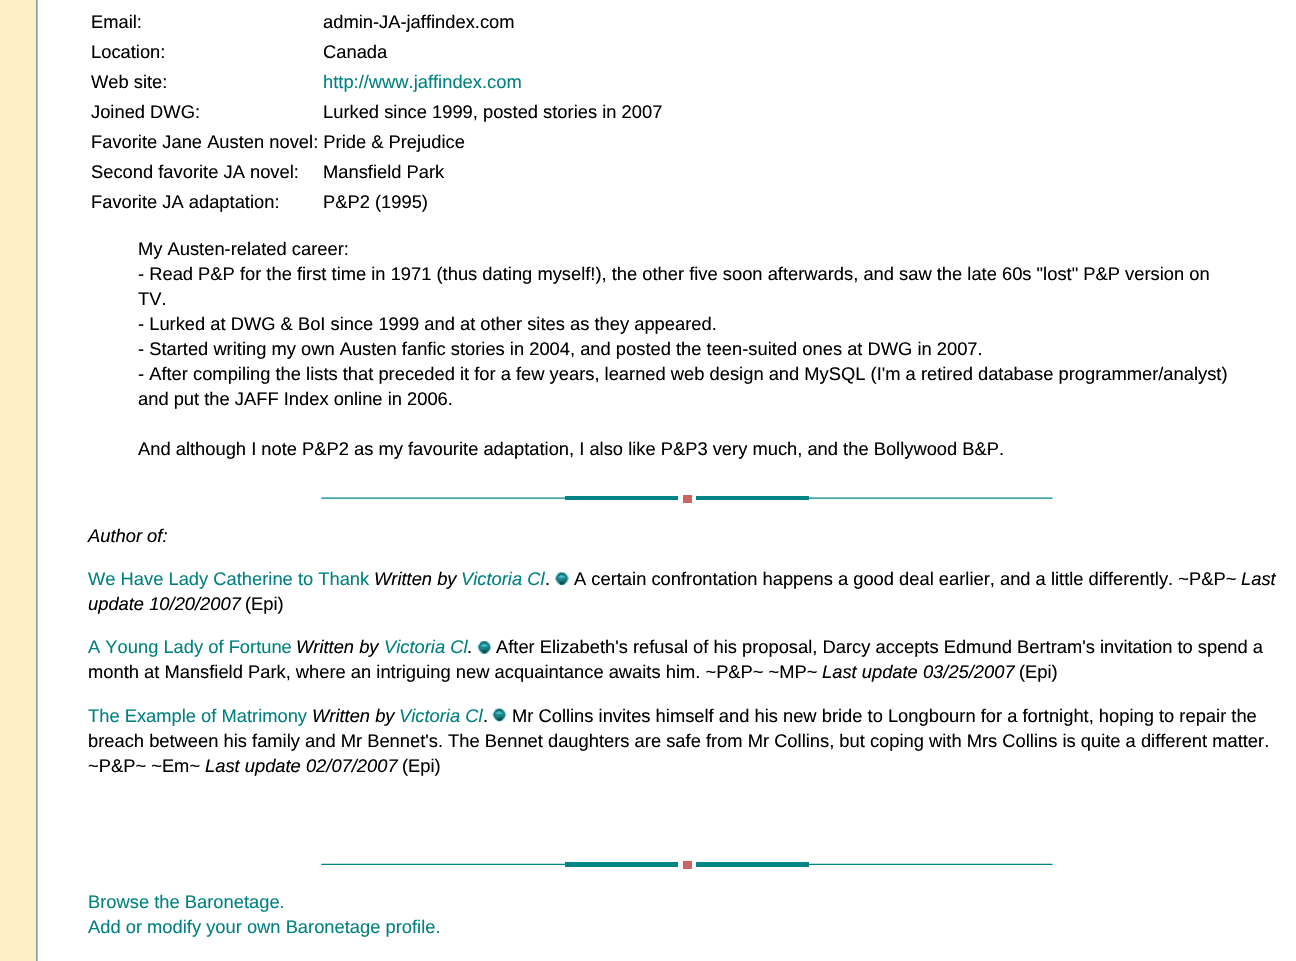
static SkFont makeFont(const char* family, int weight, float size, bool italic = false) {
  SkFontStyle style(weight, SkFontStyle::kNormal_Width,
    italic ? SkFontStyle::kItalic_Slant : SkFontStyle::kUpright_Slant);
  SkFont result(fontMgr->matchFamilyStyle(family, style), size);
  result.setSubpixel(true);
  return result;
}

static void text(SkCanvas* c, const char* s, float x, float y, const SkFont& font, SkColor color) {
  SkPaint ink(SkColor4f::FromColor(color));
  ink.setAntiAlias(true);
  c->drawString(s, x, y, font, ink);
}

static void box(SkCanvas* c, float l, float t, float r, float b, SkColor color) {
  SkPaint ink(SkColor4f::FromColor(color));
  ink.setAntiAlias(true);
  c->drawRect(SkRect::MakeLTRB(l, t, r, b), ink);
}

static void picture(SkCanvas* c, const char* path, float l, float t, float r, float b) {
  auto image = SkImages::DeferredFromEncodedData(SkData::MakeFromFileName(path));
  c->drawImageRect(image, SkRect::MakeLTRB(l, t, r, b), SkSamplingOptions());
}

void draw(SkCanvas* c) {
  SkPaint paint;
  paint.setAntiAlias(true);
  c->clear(0xffffffff);
  picture(c, "img_01.png", 0, 0, 38, 961);
  SkFont face1 = makeFont("Liberation Sans", 400, 18.33f);
  text(c, "Email:", 91, 28, face1, 0xff000000);
  text(c, "admin-JA-jaffindex.com", 323, 28, face1, 0xff000000);
  text(c, "Location:", 91, 58, face1, 0xff000000);
  text(c, "Canada", 323, 58, face1, 0xff000000);
  text(c, "Web site:", 91, 88, face1, 0xff000000);
  text(c, "http://www.jaffindex.com", 323, 88, face1, 0xff008080);
  text(c, "Joined DWG:", 91, 118, face1, 0xff000000);
  text(c, "Lurked since 1999, posted stories in 2007", 323, 118, face1, 0xff000000);
  text(c, "Favorite Jane Austen novel: Pride & Prejudice", 91, 148, face1, 0xff000000);
  text(c, "Second favorite JA novel:", 91, 178, face1, 0xff000000);
  text(c, "Mansfield Park", 323, 178, face1, 0xff000000);
  text(c, "Favorite JA adaptation:", 91, 208, face1, 0xff000000);
  text(c, "P&P2 (1995)", 323, 208, face1, 0xff000000);
  text(c, "My Austen-related career:", 138, 255, face1, 0xff000000);
  text(c, "- Read P&P for the first time in 1971 (thus dating myself!), the other five soon afterwards, and saw the late 60s \"lost\" P&P version on", 138, 280, face1, 0xff000000);
  text(c, "TV.", 138, 305, face1, 0xff000000);
  text(c, "- Lurked at DWG & BoI since 1999 and at other sites as they appeared.", 138, 330, face1, 0xff000000);
  text(c, "- Started writing my own Austen fanfic stories in 2004, and posted the teen-suited ones at DWG in 2007.", 138, 355, face1, 0xff000000);
  text(c, "- After compiling the lists that preceded it for a few years, learned web design and MySQL (I'm a retired database programmer/analyst)", 138, 380, face1, 0xff000000);
  text(c, "and put the JAFF Index online in 2006.", 138, 405, face1, 0xff000000);
  text(c, "And although I note P&P2 as my favourite adaptation, I also like P&P3 very much, and the Bollywood B&P.", 138, 455, face1, 0xff000000);
  picture(c, "img_02.png", 321, 497, 565, 499);
  box(c, 565, 496, 678, 500, 0xff008484);
  box(c, 683, 495, 692, 503, 0xffce6363);
  box(c, 696, 496, 809, 500, 0xff008484);
  picture(c, "img_03.png", 809, 497, 1053, 499);
  SkFont face2 = makeFont("Liberation Sans", 400, 18.33f, true);
  text(c, "Author of:", 88, 542, face2, 0xff000000);
  text(c, "We Have Lady Catherine to Thank", 88, 585, face1, 0xff008080);
  text(c, "Written by", 374, 585, face2, 0xff000000);
  text(c, "Victoria Cl", 461, 585, face2, 0xff008080);
  text(c, ".", 545, 585, face1, 0xff000000);
  picture(c, "img_04.png", 555, 572, 569, 585);
  text(c, "A certain confrontation happens a good deal earlier, and a little differently. ~P&P~", 574, 585, face1, 0xff000000);
  text(c, "Last", 1241, 585, face2, 0xff000000);
  text(c, "update 10/20/2007", 88, 610, face2, 0xff000000);
  text(c, "(Epi)", 245, 610, face1, 0xff000000);
  text(c, "A Young Lady of Fortune", 88, 653, face1, 0xff008080);
  text(c, "Written by", 296, 653, face2, 0xff000000);
  text(c, "Victoria Cl", 384, 653, face2, 0xff008080);
  text(c, ".", 467, 653, face1, 0xff000000);
  picture(c, "img_05.png", 477, 641, 492, 654);
  text(c, "After Elizabeth's refusal of his proposal, Darcy accepts Edmund Bertram's invitation to spend a", 496, 653, face1, 0xff000000);
  text(c, "month at Mansfield Park, where an intriguing new acquaintance awaits him. ~P&P~ ~MP~", 88, 678, face1, 0xff000000);
  text(c, "Last update 03/25/2007", 822, 678, face2, 0xff000000);
  text(c, "(Epi)", 1019, 678, face1, 0xff000000);
  text(c, "The Example of Matrimony", 88, 722, face1, 0xff008080);
  text(c, "Written by", 312, 722, face2, 0xff000000);
  text(c, "Victoria Cl", 399, 722, face2, 0xff008080);
  text(c, ".", 483, 722, face1, 0xff000000);
  picture(c, "img_06.png", 492, 708, 507, 722);
  text(c, "Mr Collins invites himself and his new bride to Longbourn for a fortnight, hoping to repair the", 512, 722, face1, 0xff000000);
  text(c, "breach between his family and Mr Bennet's. The Bennet daughters are safe from Mr Collins, but coping with Mrs Collins is quite a different matter.", 88, 747, face1, 0xff000000);
  text(c, "~P&P~ ~Em~", 88, 772, face1, 0xff000000);
  text(c, "Last update 02/07/2007", 205, 772, face2, 0xff000000);
  text(c, "(Epi)", 402, 772, face1, 0xff000000);
  picture(c, "img_07.png", 321, 863, 565, 865);
  box(c, 565, 862, 678, 867, 0xff008484);
  box(c, 683, 861, 692, 869, 0xffce6363);
  box(c, 696, 862, 809, 867, 0xff008484);
  picture(c, "img_08.png", 809, 863, 1053, 865);
  text(c, "Browse the Baronetage.", 88, 908, face1, 0xff008080);
  text(c, "Add or modify your own Baronetage profile.", 88, 933, face1, 0xff008080);
}
